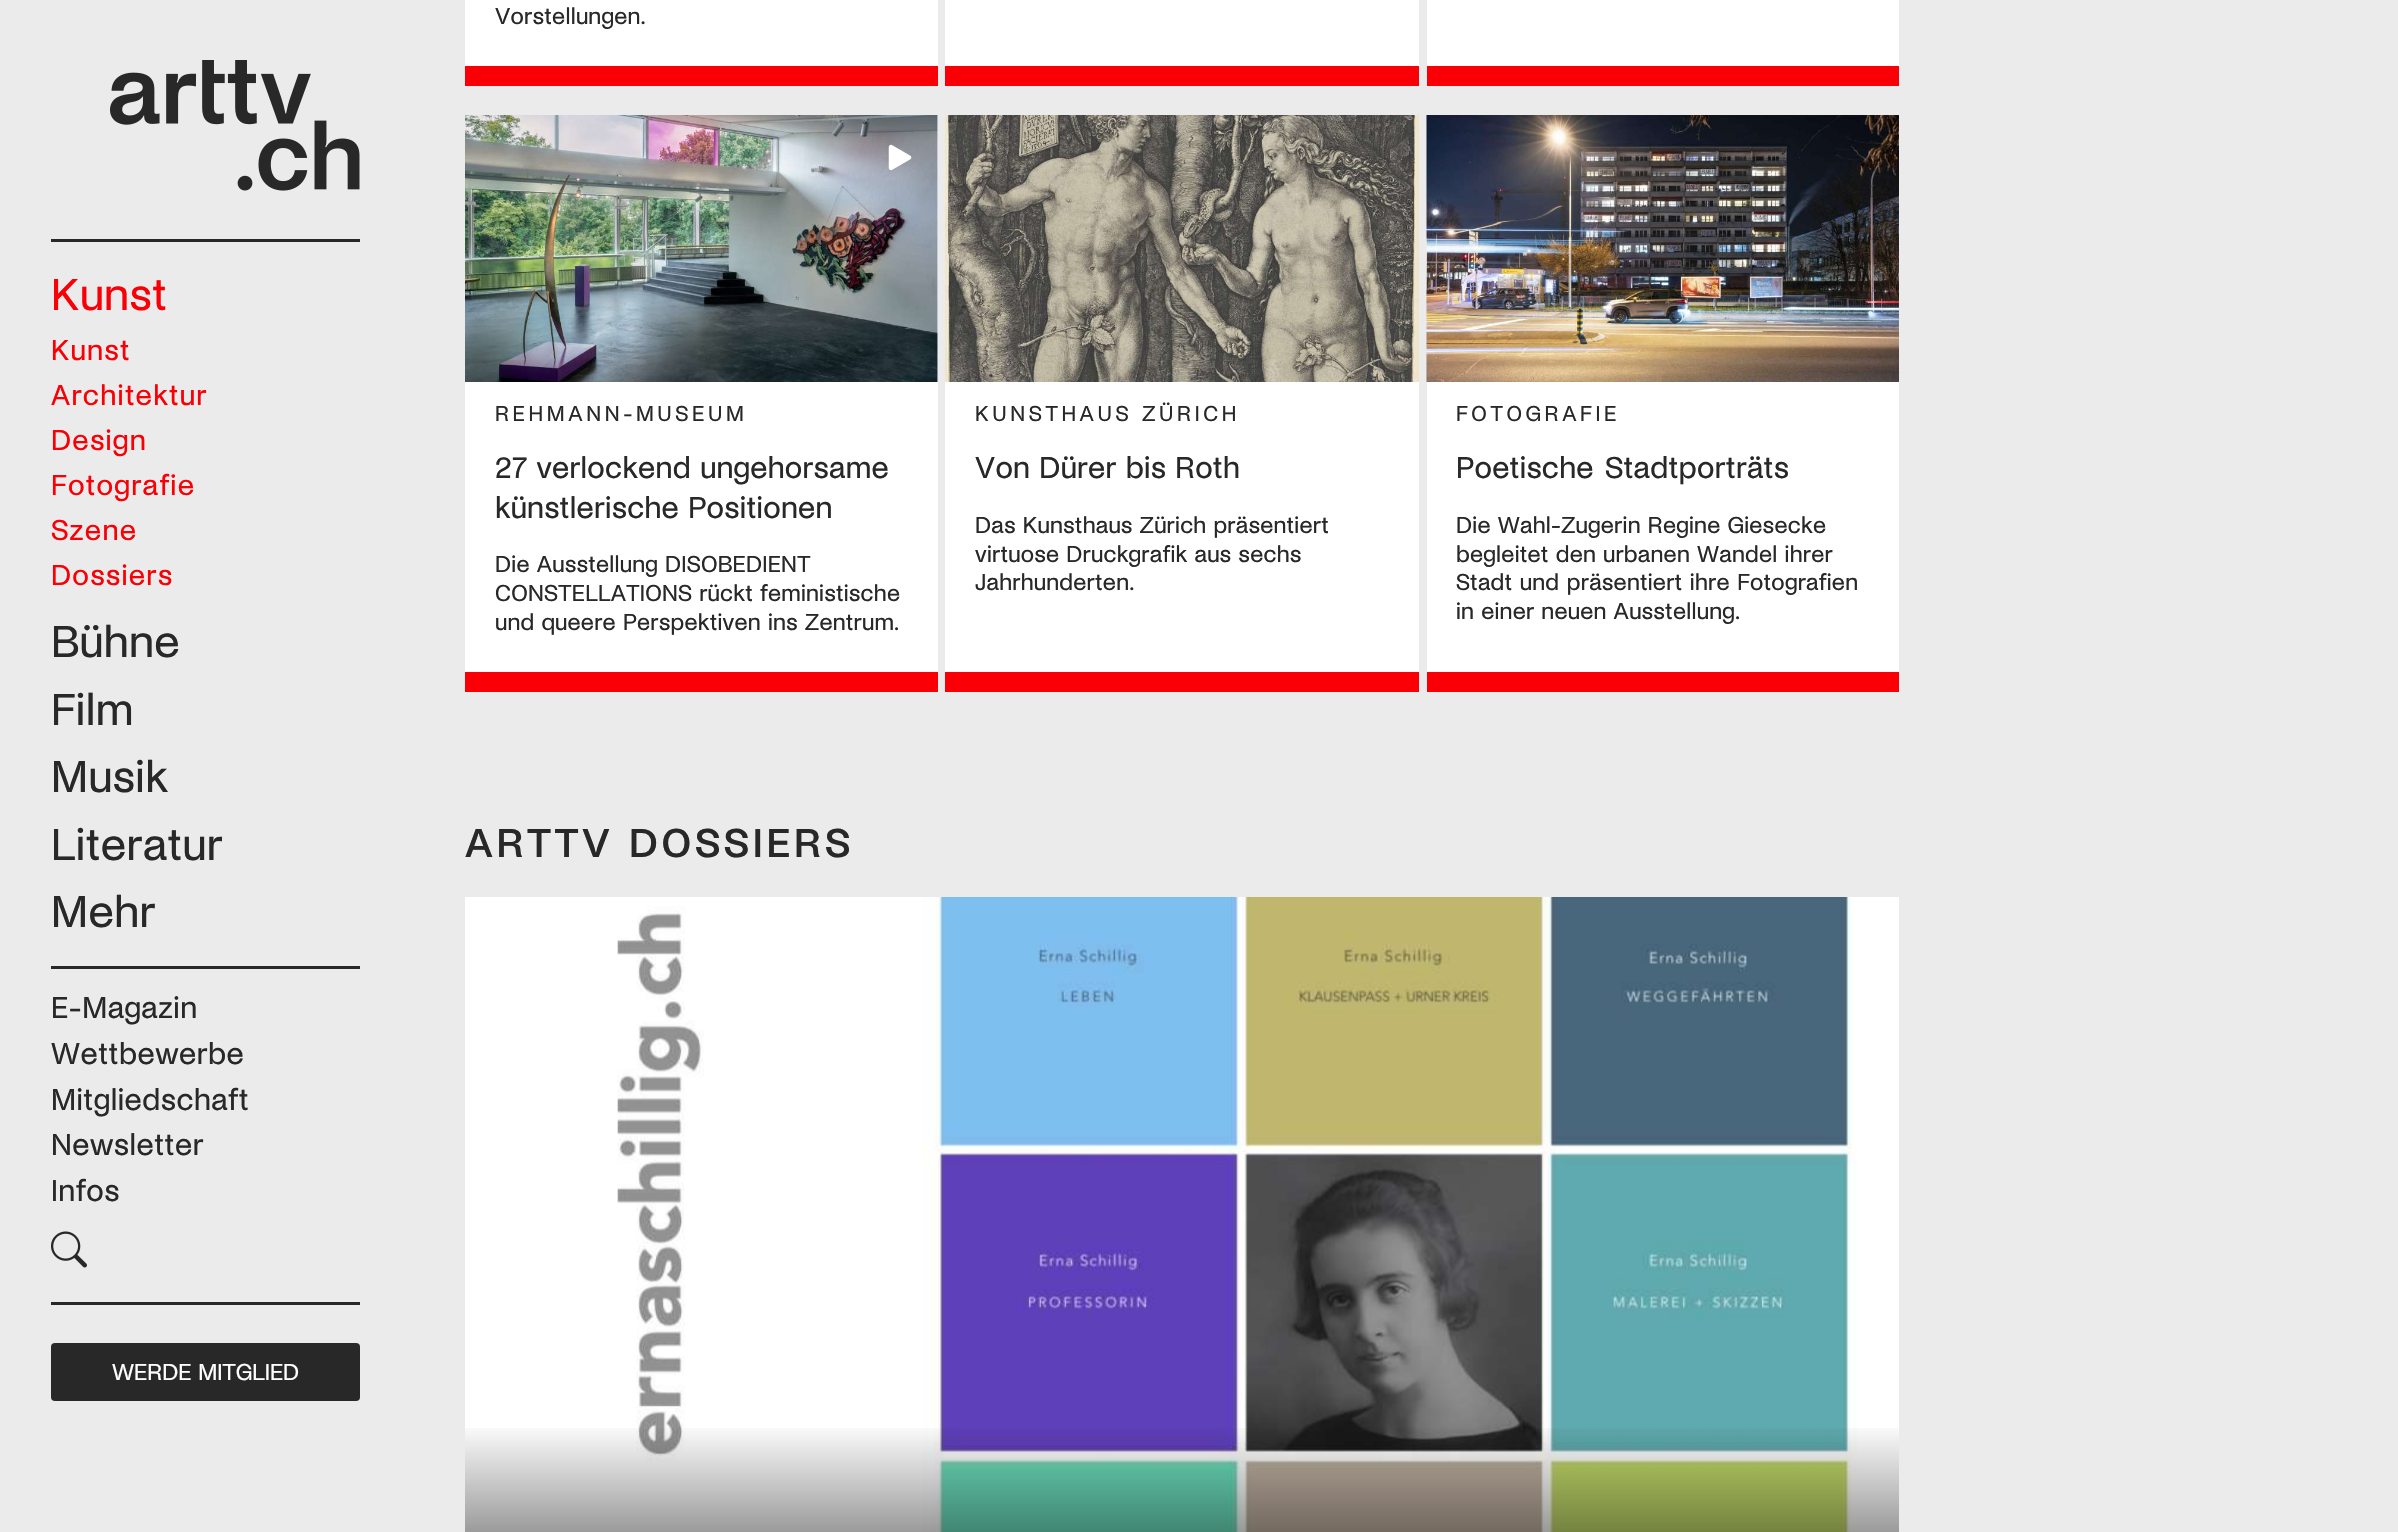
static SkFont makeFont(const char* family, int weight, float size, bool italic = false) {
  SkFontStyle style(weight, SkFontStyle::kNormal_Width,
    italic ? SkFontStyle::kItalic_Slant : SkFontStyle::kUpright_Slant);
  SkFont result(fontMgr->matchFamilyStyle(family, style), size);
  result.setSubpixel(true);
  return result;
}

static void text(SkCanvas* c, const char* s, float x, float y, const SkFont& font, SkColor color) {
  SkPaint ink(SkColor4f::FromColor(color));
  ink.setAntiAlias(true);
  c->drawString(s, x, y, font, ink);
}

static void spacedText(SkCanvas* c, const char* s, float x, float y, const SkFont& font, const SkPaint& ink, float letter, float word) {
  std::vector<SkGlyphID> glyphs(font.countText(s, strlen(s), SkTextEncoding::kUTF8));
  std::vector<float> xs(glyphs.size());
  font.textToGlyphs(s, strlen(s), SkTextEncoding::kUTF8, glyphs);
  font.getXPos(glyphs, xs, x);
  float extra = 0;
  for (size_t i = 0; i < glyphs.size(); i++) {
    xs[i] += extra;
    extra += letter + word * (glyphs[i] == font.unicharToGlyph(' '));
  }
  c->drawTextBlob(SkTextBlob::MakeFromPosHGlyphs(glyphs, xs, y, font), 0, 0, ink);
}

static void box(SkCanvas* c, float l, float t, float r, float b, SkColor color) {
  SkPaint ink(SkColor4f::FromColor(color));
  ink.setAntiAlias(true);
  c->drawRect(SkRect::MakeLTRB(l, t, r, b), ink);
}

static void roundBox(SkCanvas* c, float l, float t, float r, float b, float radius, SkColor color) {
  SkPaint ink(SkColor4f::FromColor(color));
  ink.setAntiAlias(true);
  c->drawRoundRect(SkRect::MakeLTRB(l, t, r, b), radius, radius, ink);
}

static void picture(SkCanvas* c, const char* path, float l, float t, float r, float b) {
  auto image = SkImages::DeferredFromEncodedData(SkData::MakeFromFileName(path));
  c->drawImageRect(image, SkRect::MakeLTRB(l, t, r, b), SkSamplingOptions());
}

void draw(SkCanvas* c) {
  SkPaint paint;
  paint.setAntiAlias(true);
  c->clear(0xffebebeb);
  box(c, 51, 239, 360, 242, 0xff282828);
  picture(c, "img_01.png", 110, 60, 360, 191);
  SkFont face1 = makeFont("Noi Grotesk", 400, 46.5f);
  paint.setColor(0xfffa0006);
  spacedText(c, "Kunst", 51, 310, face1, paint, 0.5f, 0);
  SkFont face2 = makeFont("Noi Grotesk", 400, 30);
  spacedText(c, "Kunst", 51, 360, face2, paint, 1.25f, 0);
  spacedText(c, "Architektur", 51, 405, face2, paint, 1.25f, 0);
  spacedText(c, "Design", 51, 450, face2, paint, 1.25f, 0);
  spacedText(c, "Fotografie", 51, 495, face2, paint, 1.25f, 0);
  spacedText(c, "Szene", 51, 540, face2, paint, 1.25f, 0);
  spacedText(c, "Dossiers", 51, 585, face2, paint, 1.25f, 0);
  paint.setColor(0xff282828);
  spacedText(c, "Bühne", 51, 657, face1, paint, 0.5f, 0);
  spacedText(c, "Film", 51, 725, face1, paint, 0.5f, 0);
  spacedText(c, "Musik", 51, 792, face1, paint, 0.5f, 0);
  spacedText(c, "Literatur", 51, 860, face1, paint, 0.5f, 0);
  spacedText(c, "Mehr", 51, 927, face1, paint, 0.5f, 0);
  box(c, 51, 966, 360, 969, 0xff282828);
  SkFont face3 = makeFont("Noi Grotesk", 400, 31.5f);
  spacedText(c, "E-Magazin", 51, 1018, face3, paint, 0.5f, 0);
  spacedText(c, "Wettbewerbe", 51, 1064, face3, paint, 0.5f, 0);
  spacedText(c, "Mitgliedschaft", 51, 1110, face3, paint, 0.5f, 0);
  spacedText(c, "Newsletter", 51, 1155, face3, paint, 0.5f, 0);
  spacedText(c, "Infos", 51, 1201, face3, paint, 0.5f, 0);
  picture(c, "img_02.png", 51, 1231, 87, 1268);
  box(c, 51, 1302, 360, 1305, 0xff282828);
  roundBox(c, 51, 1343, 360, 1401, 4, 0xff282828);
  SkFont face4 = makeFont("Noi Grotesk", 400, 24);
  text(c, "WERDE MITGLIED", 112, 1380, face4, 0xffffffff);
  box(c, 465, 0, 938, 66, 0xffffffff);
  box(c, 465, 66, 938, 86, 0xfffa0006);
  spacedText(c, "Vorstellungen.", 495, 24, face4, paint, 0.25f, 0);
  box(c, 945, 0, 1419, 66, 0xffffffff);
  box(c, 945, 66, 1419, 86, 0xfffa0006);
  box(c, 1427, 0, 1899, 66, 0xffffffff);
  box(c, 1427, 66, 1899, 86, 0xfffa0006);
  box(c, 465, 116, 938, 672, 0xffffffff);
  box(c, 465, 672, 938, 692, 0xfffa0006);
  picture(c, "img_03.png", 465, 115, 938, 382);
  picture(c, "img_04.png", 888, 144, 912, 171);
  SkFont face5 = makeFont("Noi Grotesk", 400, 22.5f);
  spacedText(c, "REHMANN-MUSEUM", 495, 421, face5, paint, 3.6f, 0);
  spacedText(c, "27 verlockend ungehorsame", 495, 478, face3, paint, 0.3f, 0);
  spacedText(c, "künstlerische Positionen", 495, 518, face3, paint, 0.3f, 0);
  spacedText(c, "Die Ausstellung DISOBEDIENT", 495, 572, face4, paint, 0.25f, 0);
  spacedText(c, "CONSTELLATIONS rückt feministische", 495, 601, face4, paint, 0.25f, 0);
  spacedText(c, "und queere Perspektiven ins Zentrum.", 495, 630, face4, paint, 0.25f, 0);
  box(c, 945, 382, 1419, 672, 0xffffffff);
  box(c, 945, 672, 1419, 692, 0xfffa0006);
  picture(c, "img_05.png", 945, 115, 1419, 382);
  spacedText(c, "KUNSTHAUS ZÜRICH", 975, 421, face5, paint, 3.6f, 0);
  spacedText(c, "Von Dürer bis Roth", 975, 478, face3, paint, 0.3f, 0);
  spacedText(c, "Das Kunsthaus Zürich präsentiert", 975, 533, face4, paint, 0.25f, 0);
  spacedText(c, "virtuose Druckgrafik aus sechs", 975, 562, face4, paint, 0.25f, 0);
  spacedText(c, "Jahrhunderten.", 975, 590, face4, paint, 0.25f, 0);
  box(c, 1427, 382, 1899, 672, 0xffffffff);
  box(c, 1427, 672, 1899, 692, 0xfffa0006);
  picture(c, "img_06.png", 1426, 115, 1899, 382);
  spacedText(c, "FOTOGRAFIE", 1456, 421, face5, paint, 3.6f, 0);
  spacedText(c, "Poetische Stadtporträts", 1456, 478, face3, paint, 0.3f, 2);
  spacedText(c, "Die Wahl-Zugerin Regine Giesecke", 1456, 533, face4, paint, 0.25f, 0);
  spacedText(c, "begleitet den urbanen Wandel ihrer", 1456, 562, face4, paint, 0.25f, 0);
  spacedText(c, "Stadt und präsentiert ihre Fotografien", 1456, 590, face4, paint, 0.25f, 0.5f);
  spacedText(c, "in einer neuen Ausstellung.", 1456, 619, face4, paint, 0.25f, 0);
  SkFont face6 = makeFont("Noi Grotesk", 500, 42);
  spacedText(c, "ARTTV DOSSIERS", 465, 857, face6, paint, 3.75f, 0);
  box(c, 465, 897, 1899, 1532, 0xffffffff);
  picture(c, "img_07.png", 617, 897, 1857, 1532);
  {
    const SkColor colors[] = {0xbf000000, 0xbf000000, 0x80000000, 0x40000000, 0x00000000};
    const float stops[] = {0, 0.25f, 0.5f, 0.75f, 1};
    const SkPoint ends[] = {{1182, 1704}, {1182, 1422}};
    paint.setShader(SkGradientShader::MakeLinear(ends, colors, stops, 5, SkTileMode::kClamp));
    paint.setAlpha(255);
  }
  c->drawRect(SkRect::MakeLTRB(465, 1428, 1899, 1532), paint);
}
